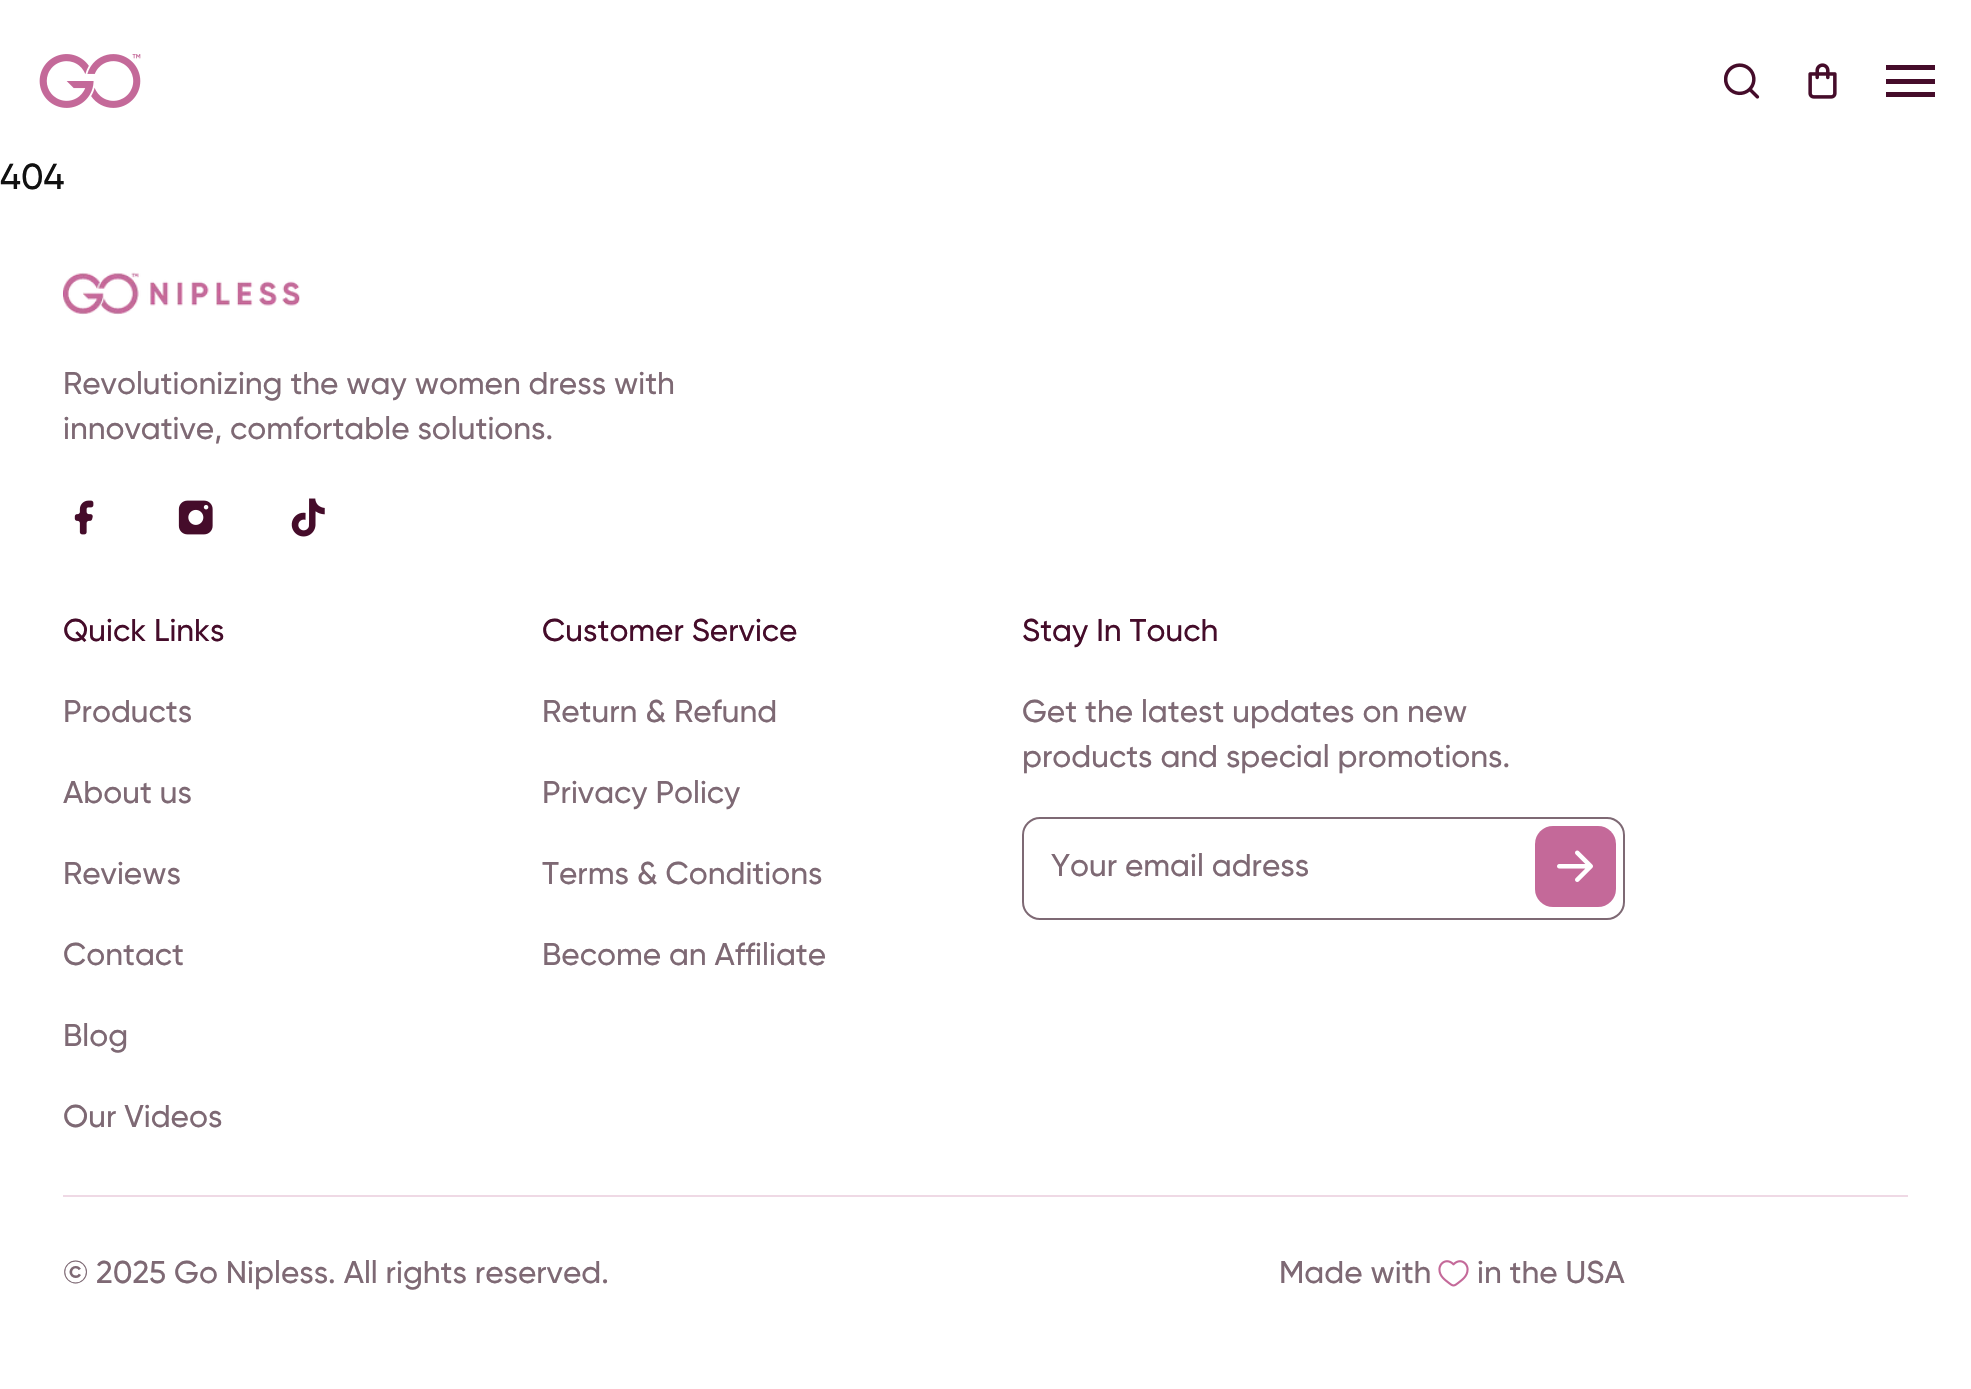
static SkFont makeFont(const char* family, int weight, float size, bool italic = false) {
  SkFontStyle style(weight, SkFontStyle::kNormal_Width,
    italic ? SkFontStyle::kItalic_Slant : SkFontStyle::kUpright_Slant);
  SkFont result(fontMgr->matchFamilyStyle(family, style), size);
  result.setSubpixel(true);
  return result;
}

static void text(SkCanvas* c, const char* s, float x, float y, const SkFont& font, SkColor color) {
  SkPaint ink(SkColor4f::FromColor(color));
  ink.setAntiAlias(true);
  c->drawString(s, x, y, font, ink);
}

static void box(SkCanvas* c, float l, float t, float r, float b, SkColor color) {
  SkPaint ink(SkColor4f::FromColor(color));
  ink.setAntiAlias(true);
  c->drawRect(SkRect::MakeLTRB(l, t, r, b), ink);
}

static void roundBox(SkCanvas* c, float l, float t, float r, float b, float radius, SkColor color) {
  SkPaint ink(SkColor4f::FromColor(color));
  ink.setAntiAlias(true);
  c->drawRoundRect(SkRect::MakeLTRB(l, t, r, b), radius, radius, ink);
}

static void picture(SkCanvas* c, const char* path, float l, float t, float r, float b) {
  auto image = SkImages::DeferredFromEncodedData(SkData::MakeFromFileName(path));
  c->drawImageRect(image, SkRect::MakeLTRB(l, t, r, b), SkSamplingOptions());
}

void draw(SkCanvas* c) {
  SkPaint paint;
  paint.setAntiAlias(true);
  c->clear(0xffffffff);
  picture(c, "img_01.png", 39, 54, 141, 108);
  picture(c, "img_02.png", 1724, 63, 1760, 99);
  picture(c, "img_03.png", 1808, 63, 1837, 99);
  box(c, 1886, 65, 1935, 70, 0xff450c2a);
  box(c, 1886, 79, 1935, 84, 0xff450c2a);
  box(c, 1886, 92, 1935, 97, 0xff450c2a);
  SkFont face1 = makeFont("Gilroy", 500, 36);
  text(c, "404", 0, 189, face1, 0xff111111);
  box(c, 63, 1195, 1908, 1197, 0xffefd9e5);
  picture(c, "img_04.png", 63, 272, 300, 315);
  SkFont face2 = makeFont("Gilroy", 500, 31.5f);
  text(c, "Revolutionizing the way women dress with", 63, 394, face2, 0xff7e6974);
  text(c, "innovative, comfortable solutions.", 63, 439, face2, 0xff7e6974);
  picture(c, "img_05.png", 74, 500, 94, 535);
  picture(c, "img_06.png", 178, 500, 213, 535);
  picture(c, "img_07.png", 291, 498, 325, 537);
  text(c, "Quick Links", 63, 641, face2, 0xff450c2a);
  text(c, "Products", 63, 722, face2, 0xff7e6974);
  text(c, "About us", 63, 803, face2, 0xff7e6974);
  text(c, "Reviews", 63, 884, face2, 0xff7e6974);
  text(c, "Contact", 63, 965, face2, 0xff7e6974);
  text(c, "Blog", 63, 1046, face2, 0xff7e6974);
  text(c, "Our Videos", 63, 1127, face2, 0xff7e6974);
  text(c, "Customer Service", 542, 641, face2, 0xff450c2a);
  text(c, "Return & Refund", 542, 722, face2, 0xff7e6974);
  text(c, "Privacy Policy", 542, 803, face2, 0xff7e6974);
  text(c, "Terms & Conditions", 542, 884, face2, 0xff7e6974);
  text(c, "Become an Affiliate", 542, 965, face2, 0xff7e6974);
  text(c, "Stay In Touch", 1022, 641, face2, 0xff450c2a);
  text(c, "Get the latest updates on new", 1022, 722, face2, 0xff7e6974);
  text(c, "products and special promotions.", 1022, 767, face2, 0xff7e6974);
  paint.setStyle(SkPaint::kStroke_Style);
  paint.setStrokeWidth(2);
  paint.setColor(0xff7e6974);
  c->drawRoundRect(SkRect::MakeLTRB(1023, 818, 1624, 919), 17, 17, paint);
  text(c, "Your email adress", 1051, 876, face2, 0xff7e6974);
  roundBox(c, 1535, 826, 1616, 907, 18, 0xffc46999);
  picture(c, "img_08.png", 1557, 850, 1593, 882);
  text(c, "© 2025 Go Nipless. All rights reserved.", 63, 1283, face2, 0xff7e6974);
  text(c, "Made with", 1279, 1283, face2, 0xff7e6974);
  picture(c, "img_09.png", 1438, 1260, 1469, 1287);
  text(c, "in the USA", 1477, 1283, face2, 0xff7e6974);
}
